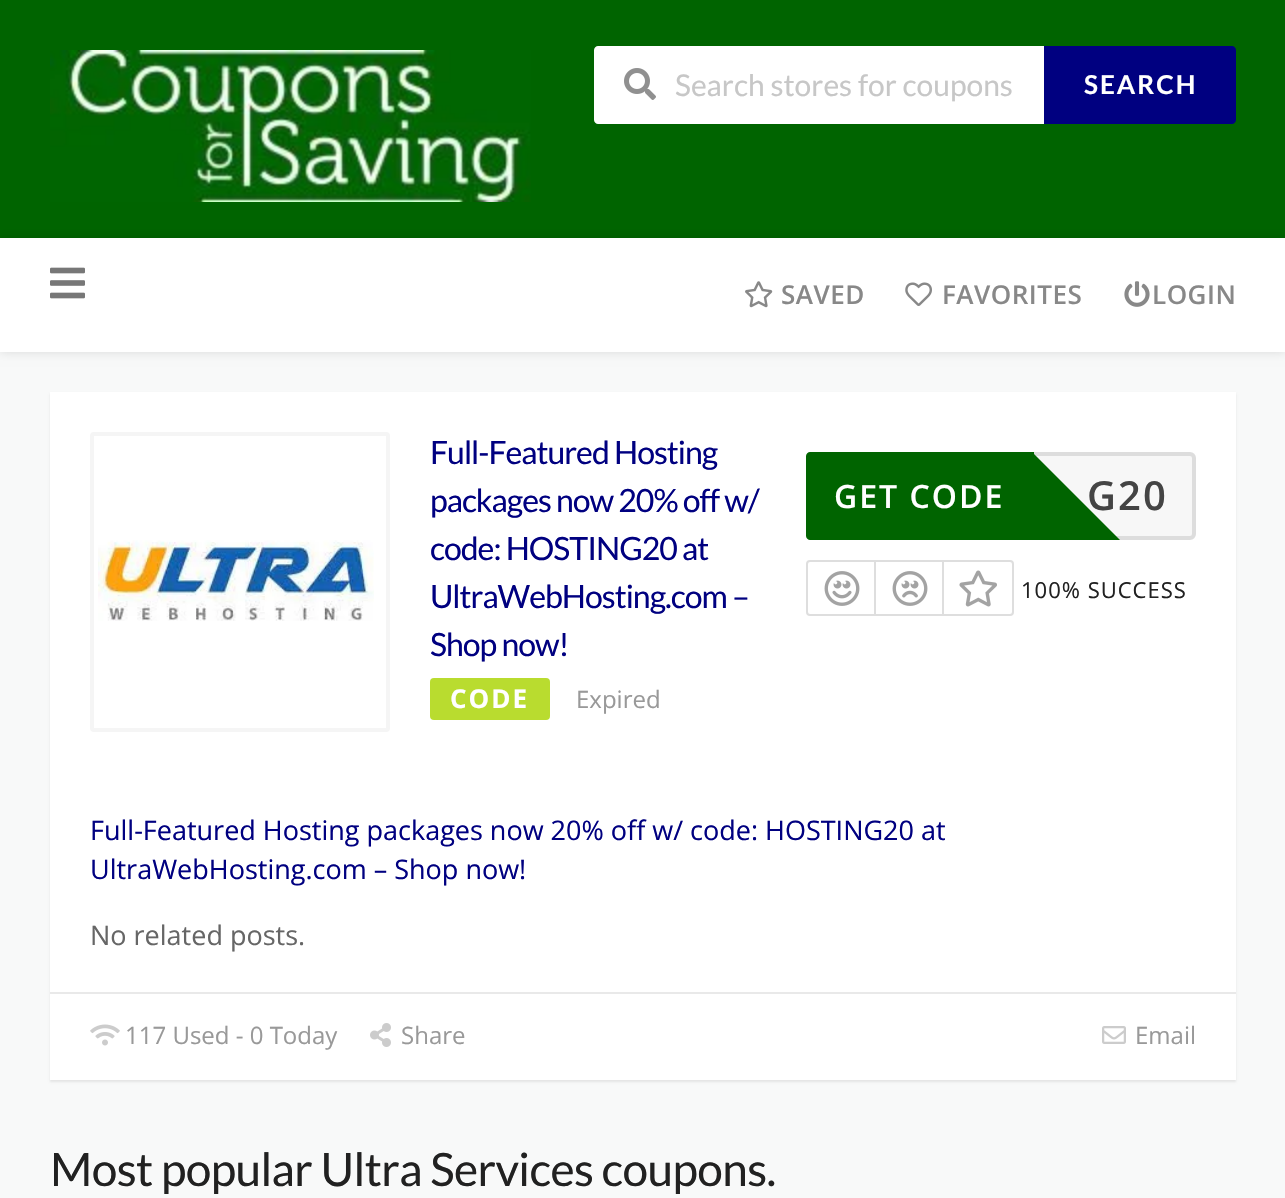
static SkFont makeFont(const char* family, int weight, float size, bool italic = false) {
  SkFontStyle style(weight, SkFontStyle::kNormal_Width,
    italic ? SkFontStyle::kItalic_Slant : SkFontStyle::kUpright_Slant);
  SkFont result(fontMgr->matchFamilyStyle(family, style), size);
  result.setSubpixel(true);
  return result;
}

static void text(SkCanvas* c, const char* s, float x, float y, const SkFont& font, SkColor color) {
  SkPaint ink(SkColor4f::FromColor(color));
  ink.setAntiAlias(true);
  c->drawString(s, x, y, font, ink);
}

static void spacedText(SkCanvas* c, const char* s, float x, float y, const SkFont& font, const SkPaint& ink, float letter, float word) {
  std::vector<SkGlyphID> glyphs(font.countText(s, strlen(s), SkTextEncoding::kUTF8));
  std::vector<float> xs(glyphs.size());
  font.textToGlyphs(s, strlen(s), SkTextEncoding::kUTF8, glyphs);
  font.getXPos(glyphs, xs, x);
  float extra = 0;
  for (size_t i = 0; i < glyphs.size(); i++) {
    xs[i] += extra;
    extra += letter + word * (glyphs[i] == font.unicharToGlyph(' '));
  }
  c->drawTextBlob(SkTextBlob::MakeFromPosHGlyphs(glyphs, xs, y, font), 0, 0, ink);
}

static void box(SkCanvas* c, float l, float t, float r, float b, SkColor color) {
  SkPaint ink(SkColor4f::FromColor(color));
  ink.setAntiAlias(true);
  c->drawRect(SkRect::MakeLTRB(l, t, r, b), ink);
}

static void roundBox(SkCanvas* c, float l, float t, float r, float b, float radius, SkColor color) {
  SkPaint ink(SkColor4f::FromColor(color));
  ink.setAntiAlias(true);
  c->drawRoundRect(SkRect::MakeLTRB(l, t, r, b), radius, radius, ink);
}

static void picture(SkCanvas* c, const char* path, float l, float t, float r, float b) {
  auto image = SkImages::DeferredFromEncodedData(SkData::MakeFromFileName(path));
  c->drawImageRect(image, SkRect::MakeLTRB(l, t, r, b), SkSamplingOptions());
}

void draw(SkCanvas* c) {
  SkPaint paint;
  paint.setAntiAlias(true);
  c->clear(0xfff8f9f9);
  box(c, 0, 0, 1285, 238, 0xff006400);
  picture(c, "img_01.png", 50, 50, 531, 202);
  paint.setColor(0xffffffff);
  c->drawPath(SkPathBuilder().moveTo(598, 46).lineTo(1044, 46).lineTo(1044, 124).lineTo(598, 124).cubicTo(596, 124, 594, 122, 594, 120).lineTo(594, 50).cubicTo(594, 48, 596, 46, 598, 46).close().detach(), paint);
  picture(c, "img_02.png", 624, 68, 656, 100);
  SkFont face1 = makeFont("Lato", 400, 30);
  text(c, "Search stores for coupons", 675, 96, face1, 0xffc7c7c7);
  paint.setColor(0xff000080);
  c->drawPath(SkPathBuilder().moveTo(1044, 46).lineTo(1232, 46).cubicTo(1234, 46, 1236, 48, 1236, 50).lineTo(1236, 120).cubicTo(1236, 122, 1234, 124, 1232, 124).lineTo(1044, 124).close().detach(), paint);
  SkFont face2 = makeFont("Lato", 700, 26);
  paint.setColor(0xffffffff);
  spacedText(c, "SEARCH", 1084, 94, face2, paint, 2, 0);
  paint.setColor(0x1f000000);
  paint.setMaskFilter(SkMaskFilter::MakeBlur(kNormal_SkBlurStyle, 5));
  c->drawRect(SkRect::MakeLTRB(0, 238, 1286, 352), paint);
  paint.setMaskFilter(nullptr);
  box(c, 0, 238, 1285, 352, 0xffffffff);
  picture(c, "img_03.png", 50, 267, 85, 299);
  picture(c, "img_04.png", 745, 281, 773, 308);
  SkFont face3 = makeFont("Open Sans", 600, 26);
  paint.setColor(0xff888888);
  spacedText(c, "SAVED", 781, 304, face3, paint, 0.5f, 0);
  picture(c, "img_05.png", 905, 282, 932, 306);
  spacedText(c, "FAVORITES", 942, 304, face3, paint, 0.5f, 0);
  picture(c, "img_06.png", 1124, 281, 1150, 307);
  spacedText(c, "LOGIN", 1152, 304, face3, paint, 0.5f, 0);
  paint.setColor(0x14000000);
  paint.setMaskFilter(SkMaskFilter::MakeBlur(kNormal_SkBlurStyle, 1));
  c->drawRect(SkRect::MakeLTRB(50, 394, 1236, 1082), paint);
  paint.setMaskFilter(nullptr);
  box(c, 50, 392, 1236, 1080, 0xffffffff);
  paint.setStyle(SkPaint::kStroke_Style);
  paint.setStrokeWidth(4);
  paint.setColor(0xfff5f5f5);
  c->drawRoundRect(SkRect::MakeLTRB(92, 434, 388, 730), 2, 2, paint);
  picture(c, "img_07.png", 98, 540, 374, 621);
  SkFont face4 = makeFont("Lato", 400, 32);
  paint.setStyle(SkPaint::kFill_Style);
  paint.setColor(0xff000080);
  spacedText(c, "Full-Featured Hosting", 430, 464, face4, paint, -1, 0);
  spacedText(c, "packages now 20% off w/", 430, 512, face4, paint, -1, 0);
  spacedText(c, "code: HOSTING20 at", 430, 560, face4, paint, -1, 0);
  spacedText(c, "UltraWebHosting.com –", 430, 608, face4, paint, -1, 0);
  spacedText(c, "Shop now!", 430, 656, face4, paint, -1, 0);
  roundBox(c, 430, 678, 550, 720, 4, 0xffb9dc2f);
  SkFont face5 = makeFont("Open Sans", 700, 26);
  paint.setColor(0xffffffff);
  spacedText(c, "CODE", 450, 708, face5, paint, 2, 0);
  SkFont face6 = makeFont("Open Sans", 400, 24);
  text(c, "Expired", 576, 708, face6, 0xff999999);
  paint.setColor(0xfff7f7f7);
  c->drawRoundRect(SkRect::MakeLTRB(808, 454, 1194, 538), 4, 4, paint);
  paint.setStyle(SkPaint::kStroke_Style);
  paint.setColor(0xffdddddd);
  c->drawRoundRect(SkRect::MakeLTRB(808, 454, 1194, 538), 4, 4, paint);
  paint.setStyle(SkPaint::kFill_Style);
  paint.setColor(0xff006400);
  c->drawPath(SkPathBuilder().moveTo(810, 452).lineTo(1034, 452).lineTo(1034, 540).lineTo(810, 540).cubicTo(808, 540, 806, 538, 806, 536).lineTo(806, 456).cubicTo(806, 454, 808, 452, 810, 452).close().detach(), paint);
  SkFont face7 = makeFont("Open Sans", 600, 32);
  paint.setColor(0xffffffff);
  spacedText(c, "GET CODE", 834, 508, face7, paint, 2, 0);
  SkFont face8 = makeFont("Open Sans", 600, 40);
  paint.setColor(0xff444444);
  spacedText(c, "G20", 1087, 510, face8, paint, 2, 0);
  paint.setColor(0xff006400);
  c->drawPath(SkPathBuilder().moveTo(1032, 540).lineTo(1032, 452).lineTo(1120, 540).close().detach(), paint);
  paint.setStyle(SkPaint::kStroke_Style);
  paint.setStrokeWidth(2);
  paint.setColor(0xffdedede);
  c->drawRoundRect(SkRect::MakeLTRB(807, 561, 1013, 615), 3, 3, paint);
  picture(c, "img_08.png", 824, 571, 860, 606);
  box(c, 874, 562, 876, 614, 0xffdedede);
  picture(c, "img_09.png", 892, 571, 928, 606);
  box(c, 942, 562, 944, 614, 0xffdedede);
  picture(c, "img_10.png", 959, 570, 997, 607);
  SkFont face9 = makeFont("Open Sans", 400, 22);
  paint.setStyle(SkPaint::kFill_Style);
  paint.setColor(0xff212121);
  spacedText(c, "100% SUCCESS", 1021, 598, face9, paint, 1, 0);
  SkFont face10 = makeFont("Open Sans", 400, 27);
  text(c, "Full-Featured Hosting packages now 20% off w/ code: HOSTING20 at", 90, 840, face10, 0xff000080);
  text(c, "UltraWebHosting.com – Shop now!", 90, 879, face10, 0xff000080);
  text(c, "No related posts.", 90, 945, face10, 0xff666666);
  box(c, 50, 992, 1236, 994, 0xffe9e9e9);
  picture(c, "img_11.png", 90, 1024, 120, 1046);
  text(c, "117 Used - 0 Today", 125, 1044, face6, 0xff999999);
  picture(c, "img_12.png", 370, 1023, 391, 1047);
  text(c, "Share", 401, 1044, face6, 0xff999999);
  picture(c, "img_13.png", 1102, 1026, 1126, 1044);
  text(c, "Email", 1135, 1044, face6, 0xff999999);
  SkFont face11 = makeFont("Lato", 400, 46);
  spacedText(c, "Most popular Ultra Services coupons.", 50, 1186, face11, paint, -0.6f, 0);
}
